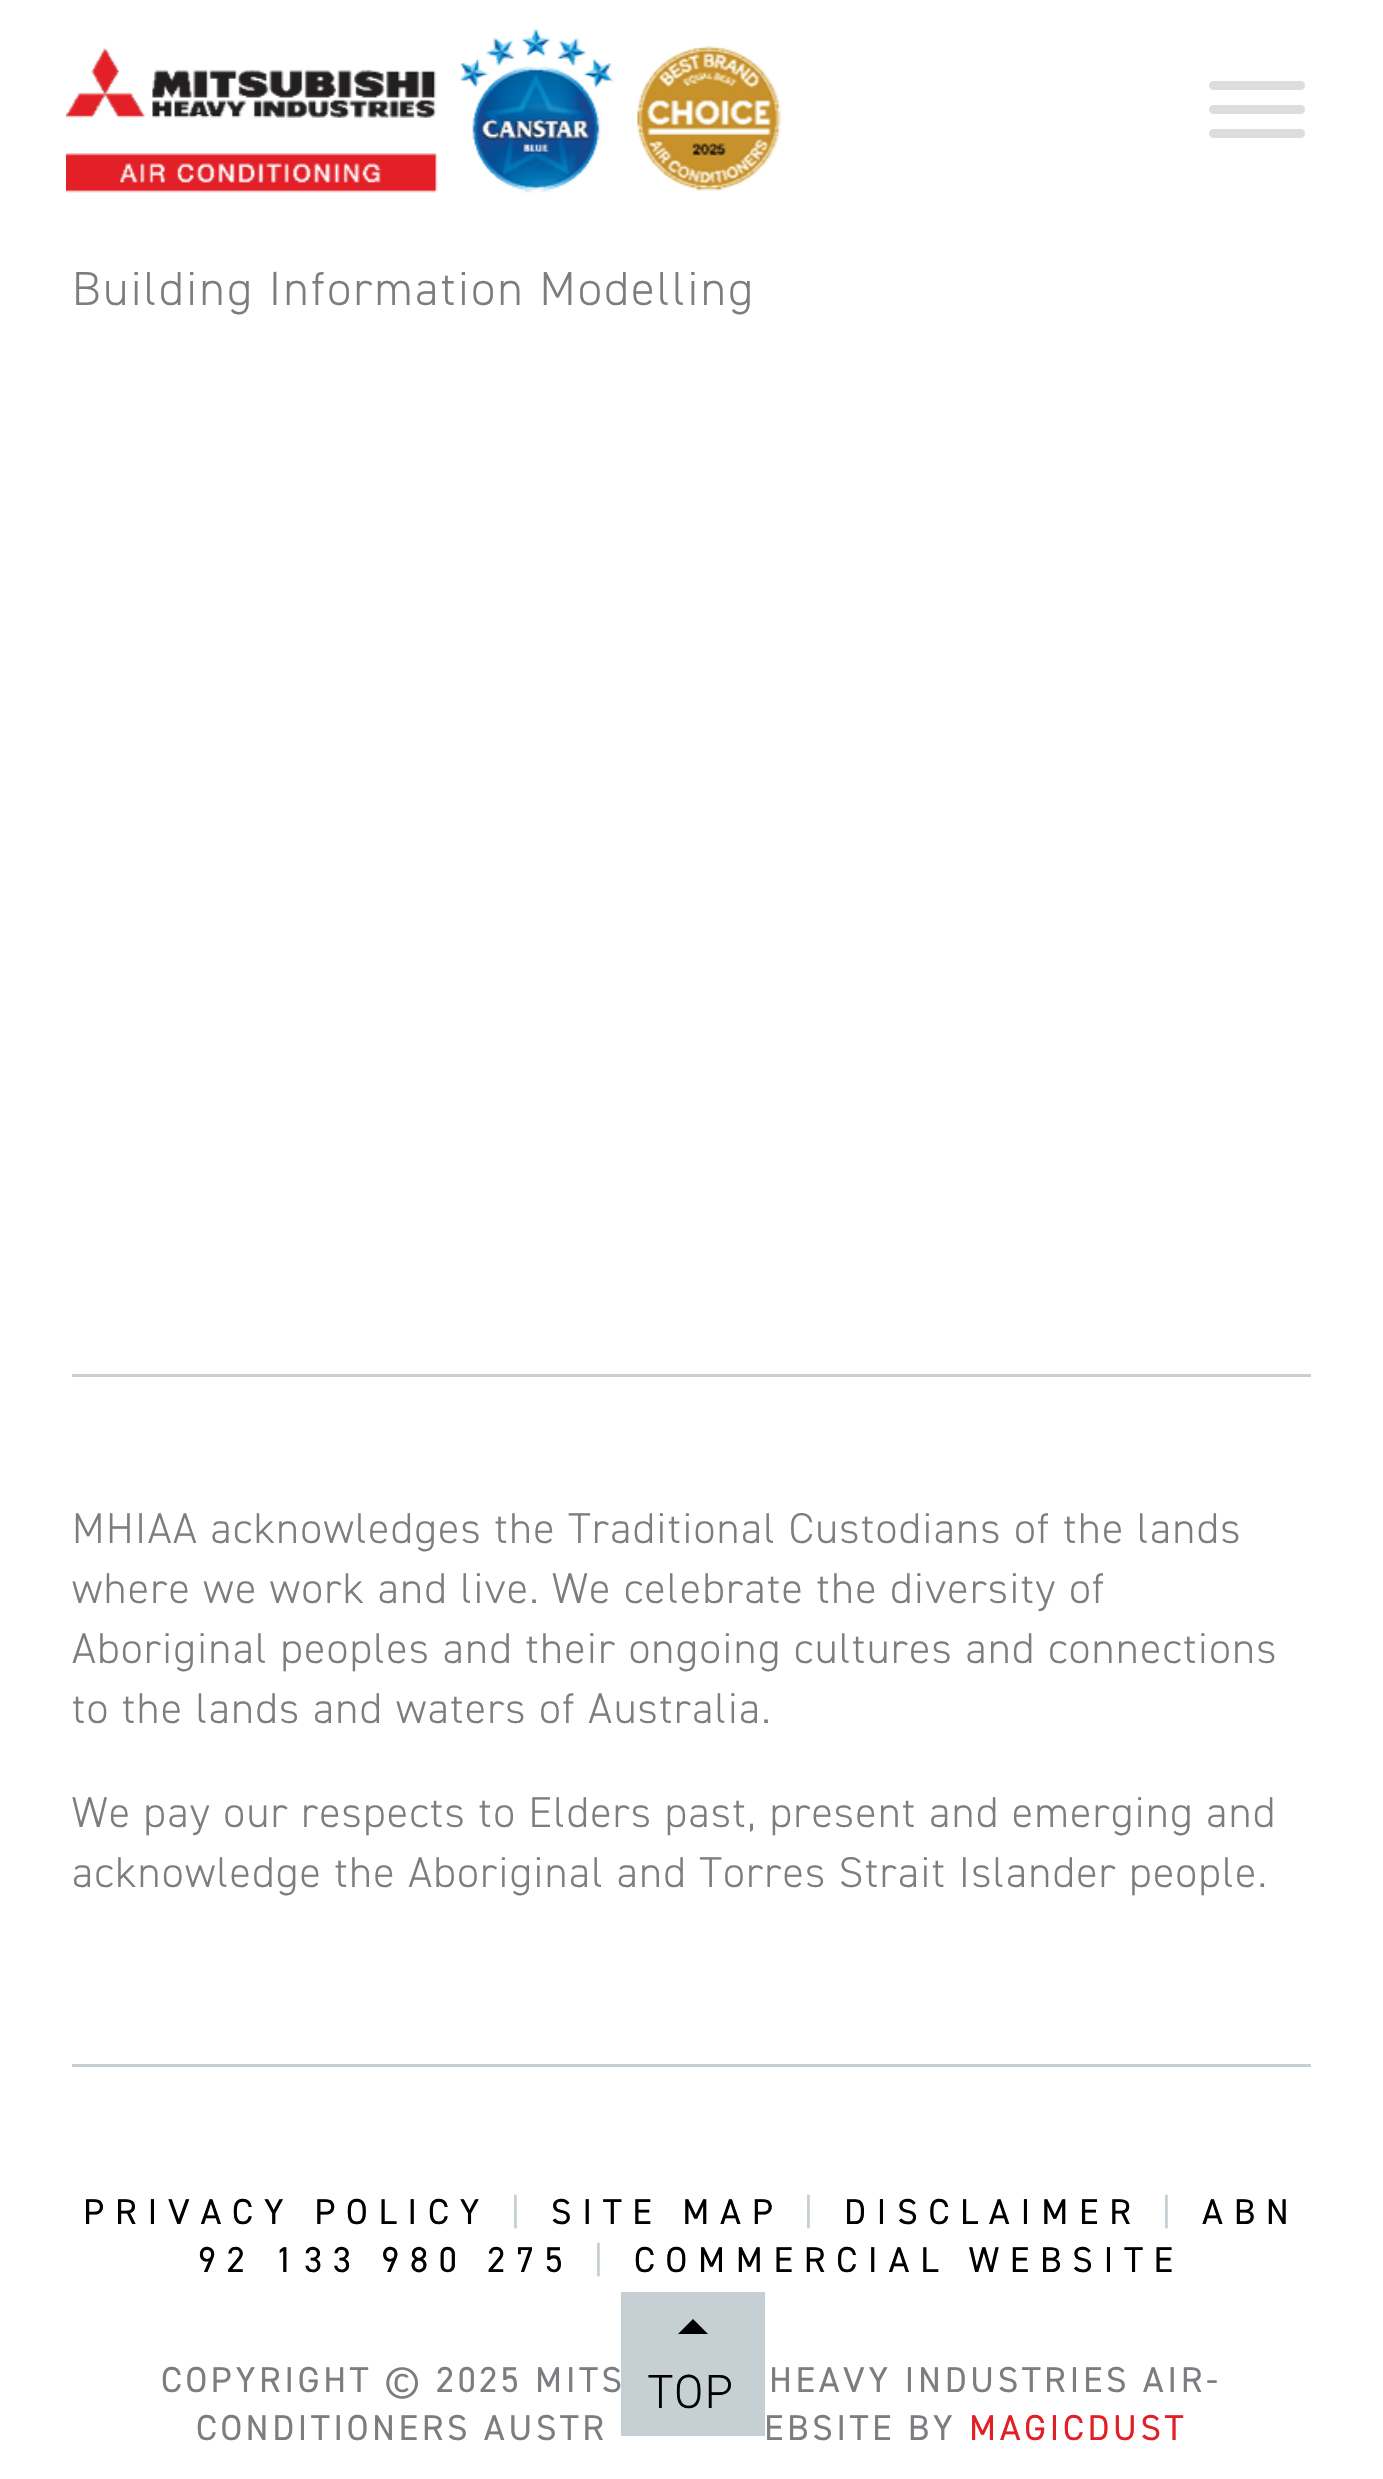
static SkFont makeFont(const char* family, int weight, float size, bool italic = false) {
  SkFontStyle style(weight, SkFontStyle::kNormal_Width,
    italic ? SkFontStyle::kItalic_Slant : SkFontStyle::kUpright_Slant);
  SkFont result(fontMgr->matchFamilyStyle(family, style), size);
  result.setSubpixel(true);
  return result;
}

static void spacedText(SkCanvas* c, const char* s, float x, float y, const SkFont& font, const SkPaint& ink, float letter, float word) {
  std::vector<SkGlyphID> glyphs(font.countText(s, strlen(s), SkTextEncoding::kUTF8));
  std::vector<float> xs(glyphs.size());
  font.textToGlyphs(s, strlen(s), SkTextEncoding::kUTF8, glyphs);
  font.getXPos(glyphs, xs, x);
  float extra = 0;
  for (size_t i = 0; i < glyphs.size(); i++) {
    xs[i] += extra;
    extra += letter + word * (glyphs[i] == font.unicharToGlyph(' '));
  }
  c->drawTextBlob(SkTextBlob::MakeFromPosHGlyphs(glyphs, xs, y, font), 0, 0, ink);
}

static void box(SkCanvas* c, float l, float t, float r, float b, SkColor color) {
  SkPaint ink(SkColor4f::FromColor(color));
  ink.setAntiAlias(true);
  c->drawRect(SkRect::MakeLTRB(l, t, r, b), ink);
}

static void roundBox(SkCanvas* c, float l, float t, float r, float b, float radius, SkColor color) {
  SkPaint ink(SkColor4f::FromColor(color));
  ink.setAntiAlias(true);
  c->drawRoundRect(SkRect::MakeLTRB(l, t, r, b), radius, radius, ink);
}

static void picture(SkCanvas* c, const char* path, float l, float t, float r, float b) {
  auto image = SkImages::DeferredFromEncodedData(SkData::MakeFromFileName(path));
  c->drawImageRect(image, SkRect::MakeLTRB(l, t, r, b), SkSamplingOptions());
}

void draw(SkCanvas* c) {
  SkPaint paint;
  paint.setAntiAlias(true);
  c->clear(0xffffffff);
  picture(c, "img_01.png", 66, 29, 782, 193);
  roundBox(c, 1209, 81, 1305, 90, 4.5f, 0xffdddddd);
  roundBox(c, 1209, 105, 1305, 114, 4.5f, 0xffdddddd);
  roundBox(c, 1209, 129, 1305, 138, 4.5f, 0xffdddddd);
  SkFont face1 = makeFont("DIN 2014", 300, 48);
  paint.setColor(0xff7c7d80);
  spacedText(c, "Building Information Modelling", 72, 305, face1, paint, 2.4f, 0);
  box(c, 72, 1374, 1311, 1377, 0xffc6d0d4);
  SkFont face2 = makeFont("DIN 2014", 300, 43.2f);
  spacedText(c, "MHIAA acknowledges the Traditional Custodians of the lands", 72, 1543, face2, paint, 1.5f, 0);
  spacedText(c, "where we work and live. We celebrate the diversity of", 72, 1603, face2, paint, 1.5f, 0);
  spacedText(c, "Aboriginal peoples and their ongoing cultures and connections", 72, 1663, face2, paint, 1.5f, 0);
  spacedText(c, "to the lands and waters of Australia.", 72, 1723, face2, paint, 1.5f, 0);
  spacedText(c, "We pay our respects to Elders past, present and emerging and", 72, 1827, face2, paint, 1.5f, 0);
  spacedText(c, "acknowledge the Aboriginal and Torres Strait Islander people.", 72, 1887, face2, paint, 1.5f, 0);
  box(c, 72, 2064, 1311, 2067, 0xffc6d0d4);
  SkFont face3 = makeFont("DIN 2014", 400, 36);
  paint.setColor(0xff000000);
  spacedText(c, "PRIVACY POLICY", 83, 2224, face3, paint, 10.75f, 0);
  paint.setColor(0xffc6d0d4);
  spacedText(c, "|", 511, 2224, face3, paint, 10.75f, 0);
  paint.setColor(0xff000000);
  spacedText(c, "SITE MAP", 551, 2224, face3, paint, 10.75f, 0);
  paint.setColor(0xffc6d0d4);
  spacedText(c, "|", 804, 2224, face3, paint, 10.75f, 0);
  paint.setColor(0xff000000);
  spacedText(c, "DISCLAIMER", 844, 2224, face3, paint, 10.75f, 0);
  paint.setColor(0xffc6d0d4);
  spacedText(c, "|", 1162, 2224, face3, paint, 10.75f, 0);
  paint.setColor(0xff000000);
  spacedText(c, "ABN", 1202, 2224, face3, paint, 10.75f, 0);
  spacedText(c, "92 133 980 275", 198, 2272, face3, paint, 10.75f, 0);
  paint.setColor(0xffc6d0d4);
  spacedText(c, "|", 594, 2272, face3, paint, 10.75f, 0);
  paint.setColor(0xff000000);
  spacedText(c, "COMMERCIAL WEBSITE", 634, 2272, face3, paint, 10.75f, 0);
  paint.setColor(0xff7c7d80);
  spacedText(c, "COPYRIGHT © 2025 MITS", 161, 2392, face3, paint, 3.6f, 0);
  spacedText(c, "HEAVY INDUSTRIES AIR-", 769, 2392, face3, paint, 3.6f, 0);
  spacedText(c, "CONDITIONERS AUSTR", 196, 2440, face3, paint, 3.6f, 0);
  spacedText(c, "EBSITE BY", 764, 2440, face3, paint, 3.6f, 0);
  paint.setColor(0xffe31f26);
  spacedText(c, "MAGICDUST", 969, 2440, face3, paint, 3.6f, 0);
  box(c, 621, 2292, 765, 2436, 0xffc6d0d4);
  paint.setColor(0xff000000);
  c->drawPath(SkPathBuilder().moveTo(708, 2334).lineTo(678, 2334).lineTo(693, 2319).close().detach(), paint);
  spacedText(c, "TOP", 648, 2408, face1, paint, 1.5f, 0);
}
